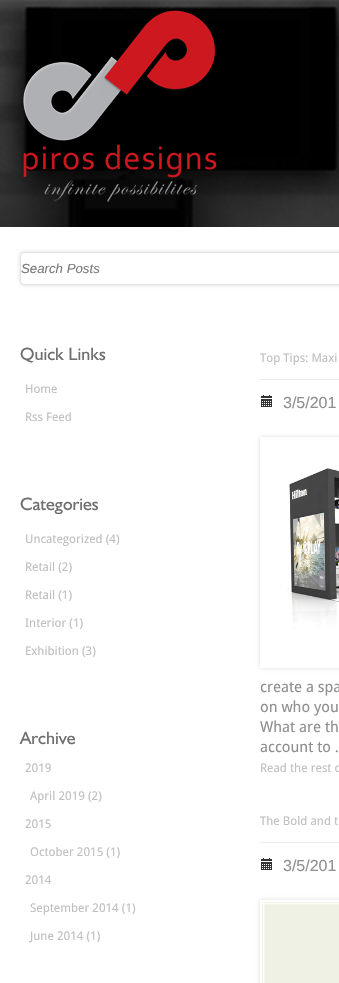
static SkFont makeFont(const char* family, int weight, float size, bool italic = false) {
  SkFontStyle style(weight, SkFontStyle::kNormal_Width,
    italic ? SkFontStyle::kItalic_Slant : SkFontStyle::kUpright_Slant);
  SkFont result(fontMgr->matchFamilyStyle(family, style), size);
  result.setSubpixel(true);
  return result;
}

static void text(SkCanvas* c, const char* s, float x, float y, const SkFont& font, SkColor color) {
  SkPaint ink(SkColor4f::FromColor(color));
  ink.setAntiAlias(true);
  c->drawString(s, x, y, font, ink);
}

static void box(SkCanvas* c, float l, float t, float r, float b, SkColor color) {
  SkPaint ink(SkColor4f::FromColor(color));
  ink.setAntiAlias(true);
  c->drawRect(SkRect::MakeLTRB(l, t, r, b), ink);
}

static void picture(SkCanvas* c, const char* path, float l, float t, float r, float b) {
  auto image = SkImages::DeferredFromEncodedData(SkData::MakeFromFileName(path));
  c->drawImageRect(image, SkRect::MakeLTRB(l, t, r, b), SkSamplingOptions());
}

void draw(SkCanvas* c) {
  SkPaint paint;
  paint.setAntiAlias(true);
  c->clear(0xffffffff);
  picture(c, "img_01.png", 0, 0, 339, 227);
  picture(c, "img_02.png", 22, 10, 217, 202);
  paint.setColor(0xffdddddd);
  paint.setMaskFilter(SkMaskFilter::MakeBlur(kNormal_SkBlurStyle, 2));
  c->drawRoundRect(SkRect::MakeLTRB(20, 252, 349, 285), 4, 4, paint);
  paint.setMaskFilter(nullptr);
  paint.setColor(0xffffffff);
  c->drawRoundRect(SkRect::MakeLTRB(20.5f, 252.5f, 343.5f, 284.5f), 3.5f, 3.5f, paint);
  paint.setStyle(SkPaint::kStroke_Style);
  paint.setStrokeWidth(1);
  paint.setColor(0xffe1e3e2);
  c->drawRoundRect(SkRect::MakeLTRB(20.5f, 252.5f, 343.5f, 284.5f), 3.5f, 3.5f, paint);
  SkFont face1 = makeFont("Liberation Sans", 400, 13.25f, true);
  text(c, "Search Posts", 21, 273, face1, 0xff777a78);
  SkFont face2 = makeFont("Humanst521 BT", 400, 18);
  text(c, "Quick Links", 20, 360, face2, 0xff6f6f6f);
  SkFont face3 = makeFont("Droid Sans", 400, 12);
  text(c, "Home", 25, 393, face3, 0xffbfbfbf);
  text(c, "Rss Feed", 25, 421, face3, 0xffbfbfbf);
  text(c, "Categories", 20, 510, face2, 0xff6f6f6f);
  text(c, "Uncategorized (4)", 25, 543, face3, 0xffbfbfbf);
  text(c, "Retail (2)", 25, 571, face3, 0xffbfbfbf);
  text(c, "Retail (1)", 25, 599, face3, 0xffbfbfbf);
  text(c, "Interior (1)", 25, 627, face3, 0xffbfbfbf);
  text(c, "Exhibition (3)", 25, 655, face3, 0xffbfbfbf);
  text(c, "Archive", 20, 744, face2, 0xff6f6f6f);
  text(c, "2019", 25, 772, face3, 0xffbfbfbf);
  text(c, "April 2019 (2)", 30, 800, face3, 0xffbfbfbf);
  text(c, "2015", 25, 828, face3, 0xffbfbfbf);
  text(c, "October 2015 (1)", 30, 856, face3, 0xffbfbfbf);
  text(c, "2014", 25, 884, face3, 0xffbfbfbf);
  text(c, "September 2014 (1)", 30, 912, face3, 0xffbfbfbf);
  text(c, "June 2014 (1)", 30, 940, face3, 0xffbfbfbf);
  box(c, 260, 379, 339, 380, 0xffebebeb);
  text(c, "Top Tips: Maxi", 260, 362, face3, 0xffbfbfbf);
  picture(c, "img_03.png", 261, 395, 272, 407);
  SkFont face4 = makeFont("Liberation Sans", 400, 16);
  text(c, "3/5/201", 283, 408, face4, 0xff8f8f8f);
  c->save();
  c->clipPath(SkPathBuilder(SkPathFillType::kEvenOdd).moveTo(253, 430).lineTo(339, 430).lineTo(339, 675).lineTo(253, 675).close().moveTo(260, 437).lineTo(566, 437).lineTo(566, 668).lineTo(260, 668).close().detach(), true);
  paint.setStyle(SkPaint::kFill_Style);
  paint.setColor(0xffdddddd);
  paint.setMaskFilter(SkMaskFilter::MakeBlur(kNormal_SkBlurStyle, 2));
  c->drawRect(SkRect::MakeLTRB(260, 437, 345, 668), paint);
  paint.setMaskFilter(nullptr);
  c->restore();
  picture(c, "img_04.png", 286, 468, 339, 629);
  SkFont face5 = makeFont("Droid Sans", 400, 15);
  text(c, "create a spa", 260, 692, face5, 0xff8f8f8f);
  text(c, "on who you", 260, 712, face5, 0xff8f8f8f);
  text(c, "What are th", 260, 732, face5, 0xff8f8f8f);
  text(c, "account to .", 260, 752, face5, 0xff8f8f8f);
  text(c, "Read the rest o", 260, 772, face3, 0xffbfbfbf);
  box(c, 260, 842, 339, 843, 0xffebebeb);
  text(c, "The Bold and t", 260, 825, face3, 0xffbfbfbf);
  picture(c, "img_03.png", 261, 858, 272, 870);
  text(c, "3/5/201", 283, 871, face4, 0xff8f8f8f);
  c->save();
  c->clipPath(SkPathBuilder(SkPathFillType::kEvenOdd).moveTo(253, 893).lineTo(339, 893).lineTo(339, 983).lineTo(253, 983).close().moveTo(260, 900).lineTo(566, 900).lineTo(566, 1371).lineTo(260, 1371).close().detach(), true);
  paint.setMaskFilter(SkMaskFilter::MakeBlur(kNormal_SkBlurStyle, 2));
  c->drawRect(SkRect::MakeLTRB(260, 900, 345, 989), paint);
  paint.setMaskFilter(nullptr);
  c->restore();
  picture(c, "img_05.png", 262, 902, 339, 983);
}
